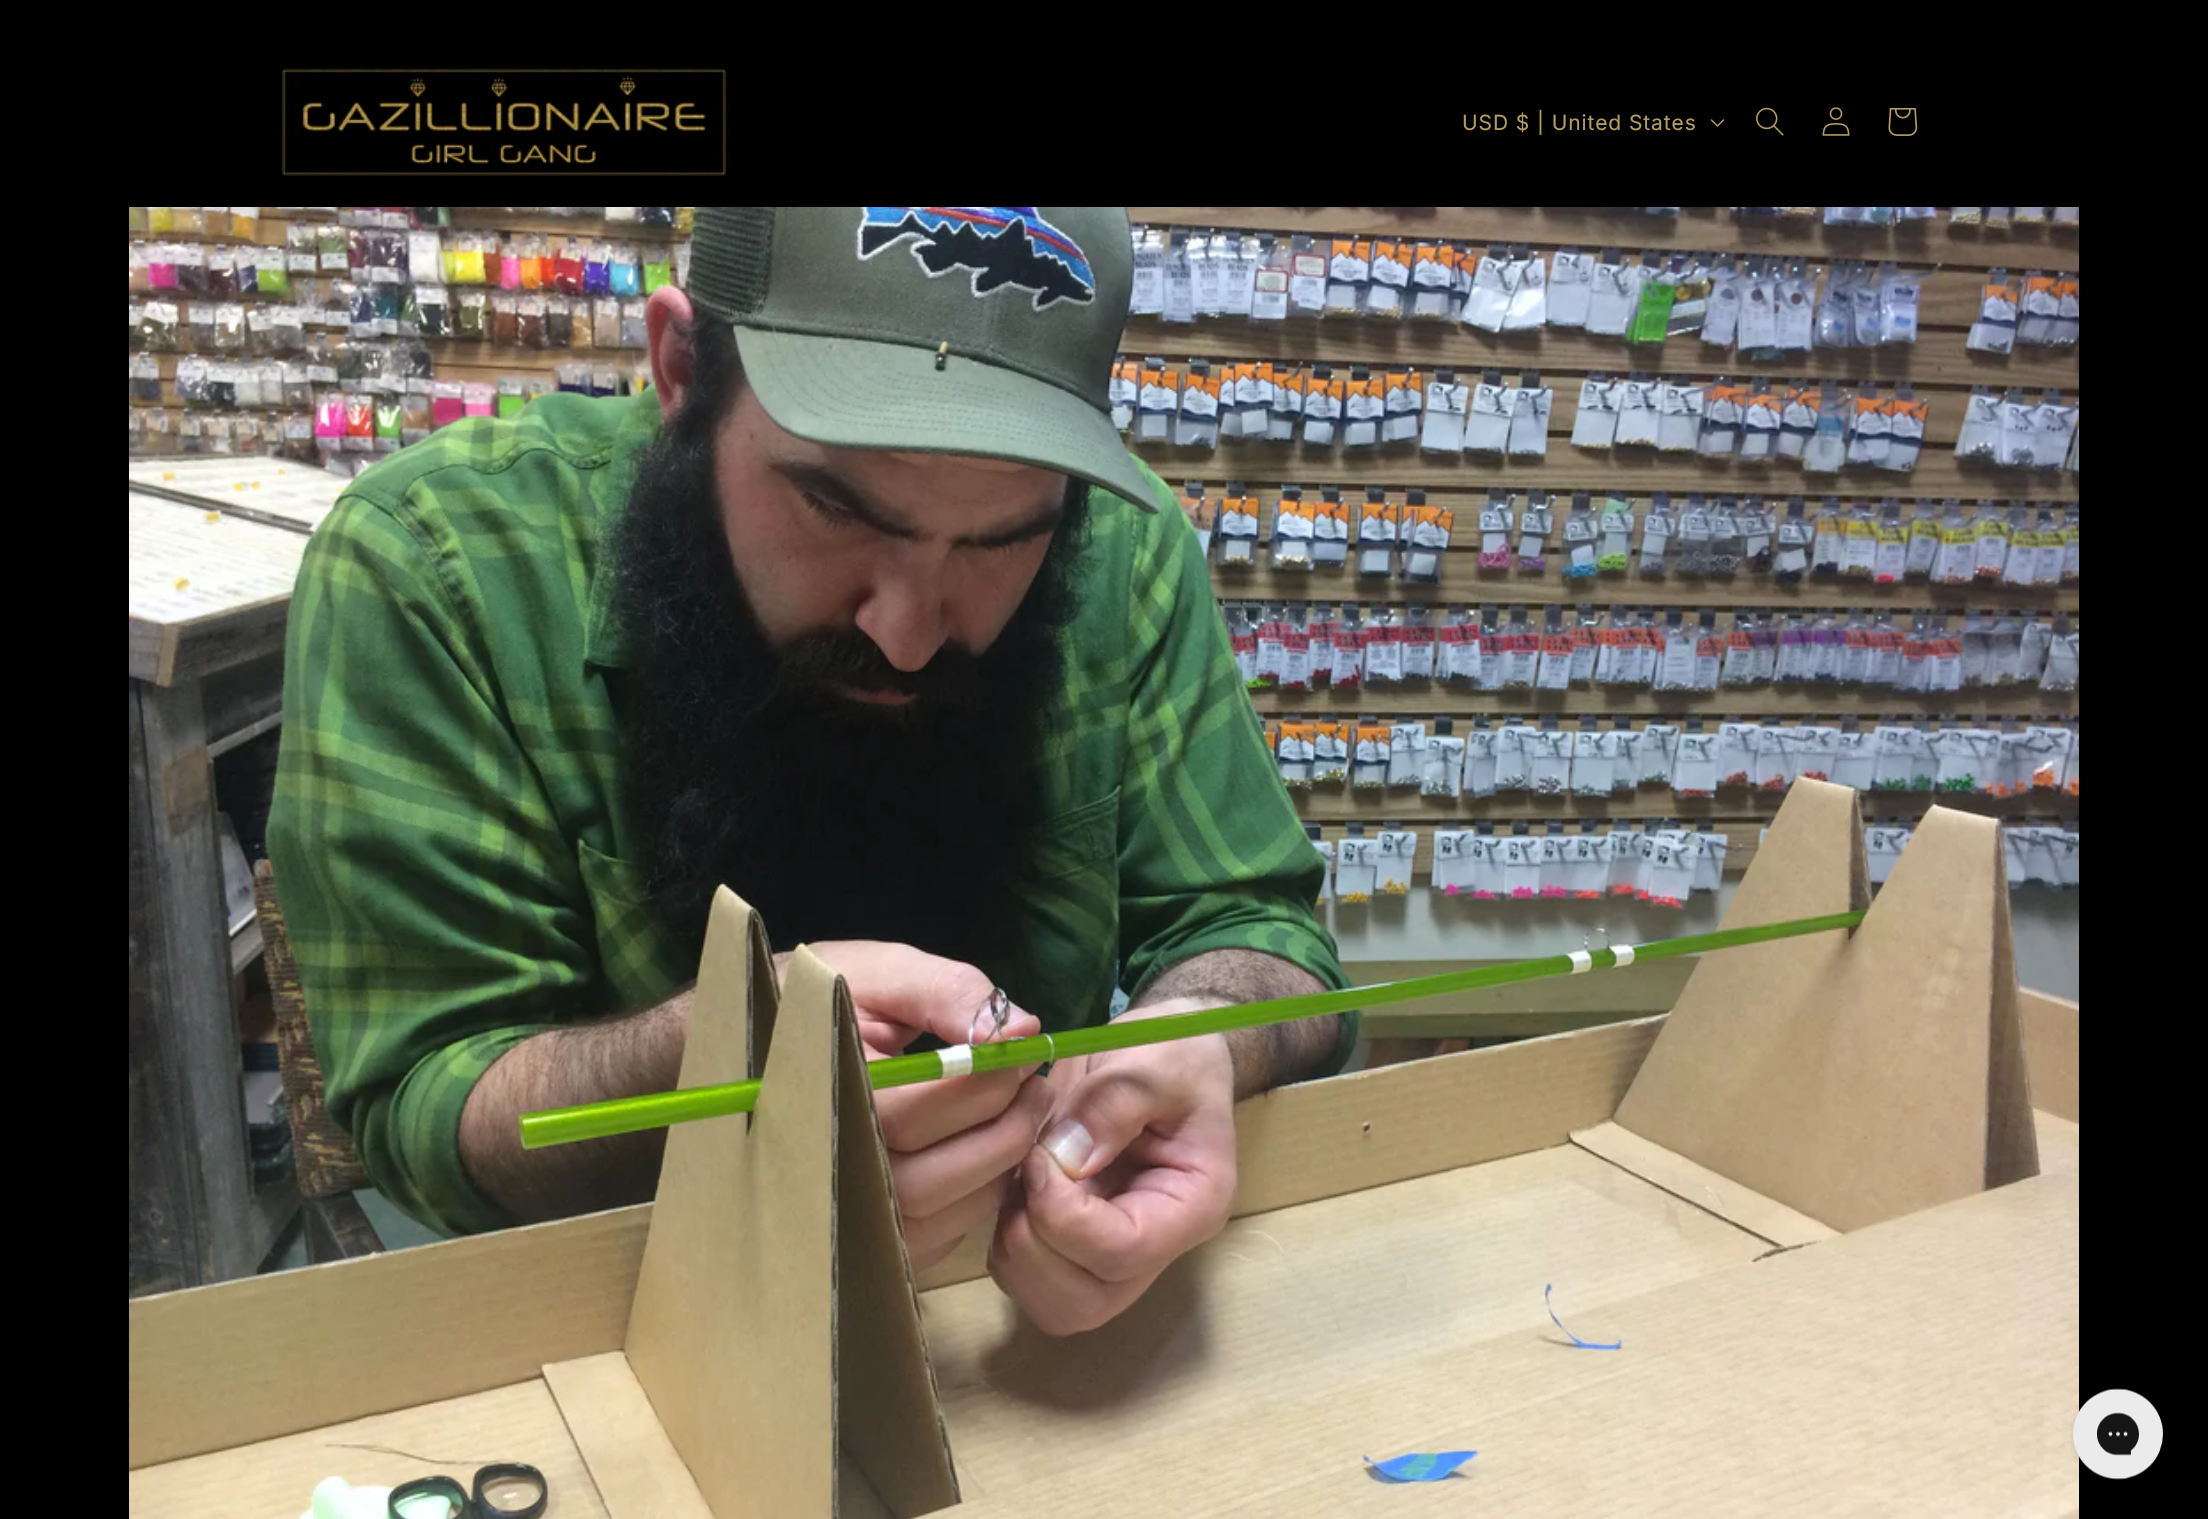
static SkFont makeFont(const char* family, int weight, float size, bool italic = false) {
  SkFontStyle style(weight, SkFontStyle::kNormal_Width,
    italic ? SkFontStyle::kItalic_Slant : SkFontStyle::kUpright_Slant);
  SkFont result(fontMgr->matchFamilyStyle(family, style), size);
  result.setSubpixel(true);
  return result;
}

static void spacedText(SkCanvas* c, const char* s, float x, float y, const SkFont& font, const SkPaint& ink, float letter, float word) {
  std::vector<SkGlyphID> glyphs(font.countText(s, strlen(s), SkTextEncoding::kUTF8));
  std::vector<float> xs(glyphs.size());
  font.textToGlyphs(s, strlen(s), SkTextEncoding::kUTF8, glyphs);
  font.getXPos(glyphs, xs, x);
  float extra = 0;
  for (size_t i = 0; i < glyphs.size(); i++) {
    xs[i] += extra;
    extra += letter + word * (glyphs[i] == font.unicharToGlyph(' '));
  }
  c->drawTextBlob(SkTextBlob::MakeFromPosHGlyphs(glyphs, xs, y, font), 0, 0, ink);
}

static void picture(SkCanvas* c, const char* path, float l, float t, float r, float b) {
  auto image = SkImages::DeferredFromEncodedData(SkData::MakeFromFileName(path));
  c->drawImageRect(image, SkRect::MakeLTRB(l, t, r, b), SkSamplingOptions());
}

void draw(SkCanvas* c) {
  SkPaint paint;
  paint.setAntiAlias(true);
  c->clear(0xff000000);
  picture(c, "img_01.png", 281, 66, 729, 178);
  SkFont face1 = makeFont("Inter", 400, 21);
  paint.setColor(0xffb49d61);
  spacedText(c, "USD $ | United States", 1462, 130, face1, paint, 0.9f, 0);
  picture(c, "img_02.png", 1710, 119, 1725, 127);
  picture(c, "img_03.png", 1756, 107, 1784, 136);
  picture(c, "img_04.png", 1822, 107, 1850, 136);
  picture(c, "img_05.png", 1888, 108, 1918, 136);
  picture(c, "img_06.png", 129, 207, 2079, 1519);
  picture(c, "img_07.png", 2070, 1388, 2163, 1480);
}
